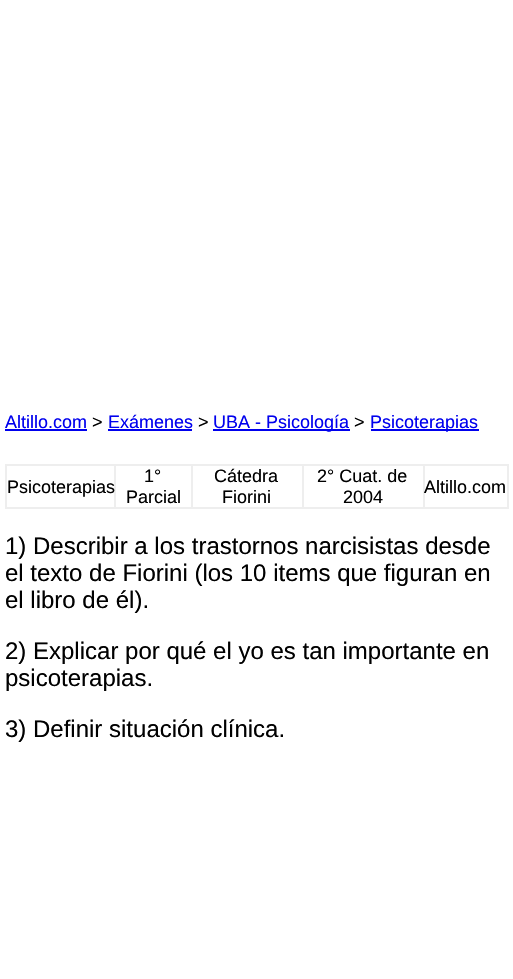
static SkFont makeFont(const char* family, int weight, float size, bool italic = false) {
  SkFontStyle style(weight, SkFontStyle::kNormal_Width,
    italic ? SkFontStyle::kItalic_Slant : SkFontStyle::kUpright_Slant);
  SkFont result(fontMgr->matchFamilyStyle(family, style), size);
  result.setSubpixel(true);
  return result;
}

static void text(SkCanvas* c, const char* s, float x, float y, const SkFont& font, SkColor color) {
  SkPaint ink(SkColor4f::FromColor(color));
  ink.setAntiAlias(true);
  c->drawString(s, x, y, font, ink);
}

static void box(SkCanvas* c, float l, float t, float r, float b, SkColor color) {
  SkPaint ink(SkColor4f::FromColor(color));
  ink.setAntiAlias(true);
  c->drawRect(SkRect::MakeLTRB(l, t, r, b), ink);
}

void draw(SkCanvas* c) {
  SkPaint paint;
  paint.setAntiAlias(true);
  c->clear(0xffffffff);
  SkFont face1 = makeFont("Liberation Sans", 400, 18);
  text(c, "Altillo.com", 5, 428, face1, 0xff0000ee);
  box(c, 5, 429, 87, 431, 0xff0000ee);
  text(c, ">", 92, 428, face1, 0xff000000);
  text(c, "Exámenes", 108, 428, face1, 0xff0000ee);
  box(c, 108, 429, 192, 431, 0xff0000ee);
  text(c, ">", 198, 428, face1, 0xff000000);
  box(c, 213, 429, 350, 431, 0xff0000ee);
  text(c, "UBA - Psicología", 213, 428, face1, 0xff0000ee);
  text(c, ">", 354, 428, face1, 0xff000000);
  box(c, 371, 429, 479, 431, 0xff0000ee);
  text(c, "Psicoterapias", 370, 428, face1, 0xff0000ee);
  box(c, 423, 464, 509, 466, 0xffeeeeee);
  box(c, 507, 464, 509, 509, 0xffeeeeee);
  box(c, 423, 507, 509, 509, 0xffeeeeee);
  box(c, 423, 464, 425, 509, 0xffeeeeee);
  box(c, 302, 464, 425, 466, 0xffeeeeee);
  box(c, 302, 507, 425, 509, 0xffeeeeee);
  box(c, 302, 464, 304, 509, 0xffeeeeee);
  box(c, 191, 464, 303, 466, 0xffeeeeee);
  box(c, 191, 507, 303, 509, 0xffeeeeee);
  box(c, 191, 464, 193, 509, 0xffeeeeee);
  box(c, 114, 464, 192, 466, 0xffeeeeee);
  box(c, 114, 507, 192, 509, 0xffeeeeee);
  box(c, 114, 464, 116, 509, 0xffeeeeee);
  box(c, 5, 464, 116, 466, 0xffeeeeee);
  box(c, 5, 507, 116, 509, 0xffeeeeee);
  box(c, 5, 464, 7, 509, 0xffeeeeee);
  text(c, "Psicoterapias", 7, 493, face1, 0xff000000);
  text(c, "1°", 144, 482, face1, 0xff000000);
  text(c, "Parcial", 126, 503, face1, 0xff000000);
  text(c, "Cátedra", 214, 482, face1, 0xff000000);
  text(c, "Fiorini", 222, 503, face1, 0xff000000);
  text(c, "2° Cuat. de", 317, 482, face1, 0xff000000);
  text(c, "2004", 343, 503, face1, 0xff000000);
  text(c, "Altillo.com", 424, 493, face1, 0xff000000);
  SkFont face2 = makeFont("Liberation Sans", 400, 24);
  text(c, "1) Describir a los trastornos narcisistas desde", 5, 554, face2, 0xff000000);
  text(c, "el texto de Fiorini (los 10 items que figuran en", 5, 581, face2, 0xff000000);
  text(c, "el libro de él).", 5, 608, face2, 0xff000000);
  text(c, "2) Explicar por qué el yo es tan importante en", 5, 659, face2, 0xff000000);
  text(c, "psicoterapias.", 5, 686, face2, 0xff000000);
  text(c, "3) Definir situación clínica.", 5, 737, face2, 0xff000000);
}
